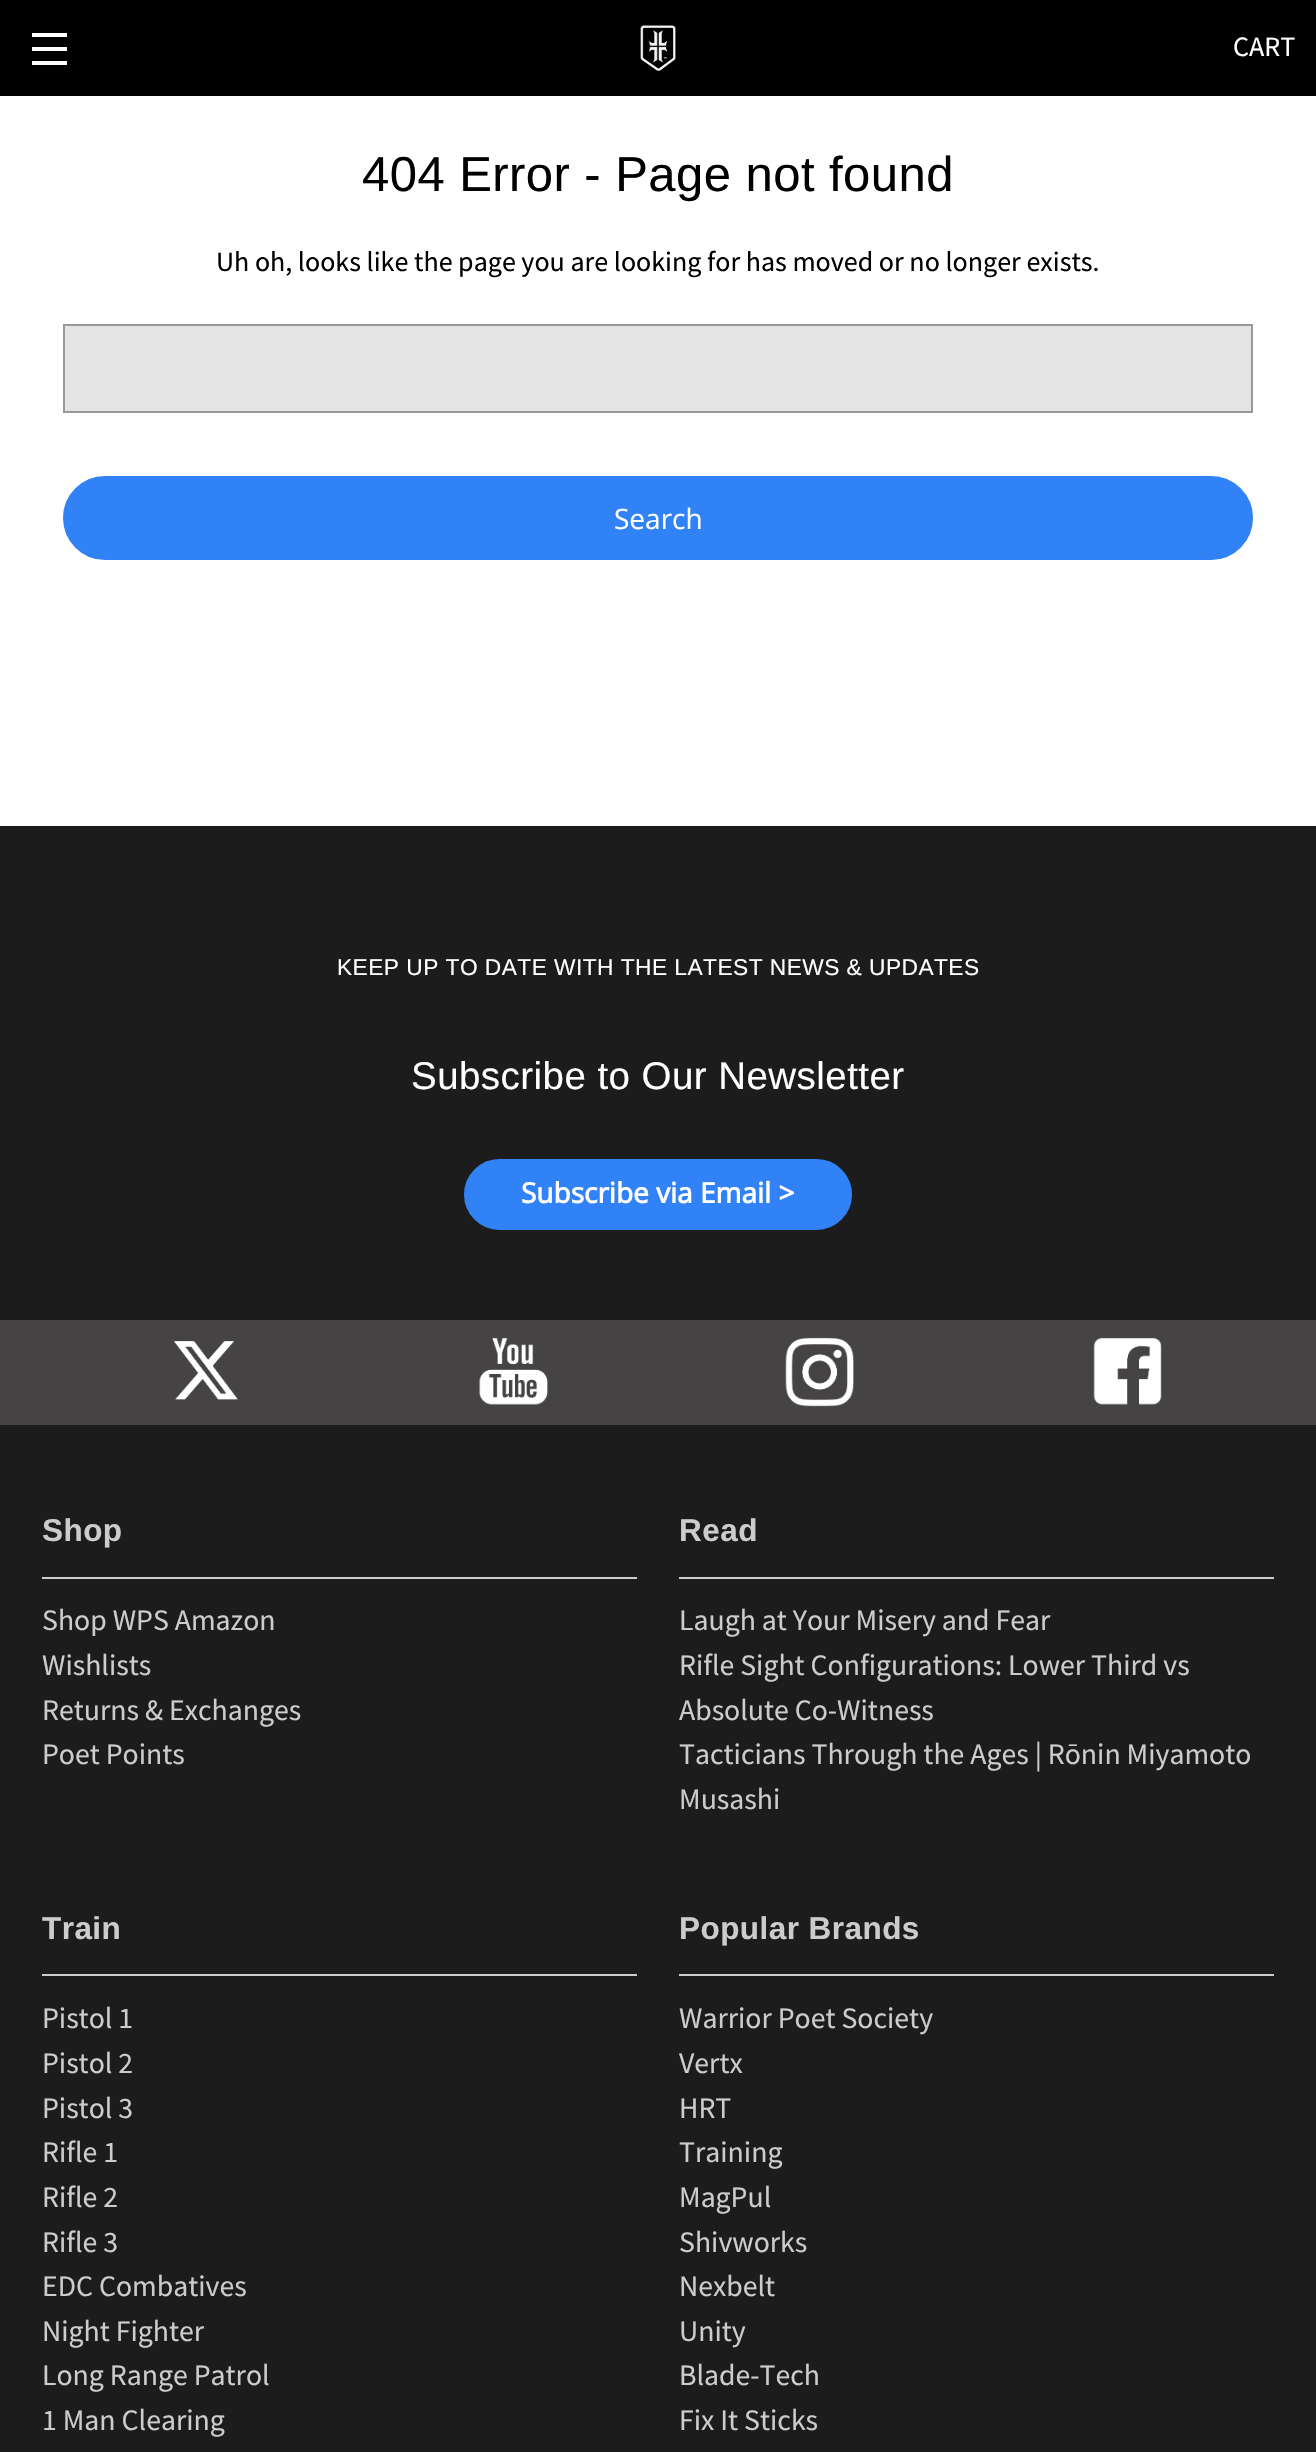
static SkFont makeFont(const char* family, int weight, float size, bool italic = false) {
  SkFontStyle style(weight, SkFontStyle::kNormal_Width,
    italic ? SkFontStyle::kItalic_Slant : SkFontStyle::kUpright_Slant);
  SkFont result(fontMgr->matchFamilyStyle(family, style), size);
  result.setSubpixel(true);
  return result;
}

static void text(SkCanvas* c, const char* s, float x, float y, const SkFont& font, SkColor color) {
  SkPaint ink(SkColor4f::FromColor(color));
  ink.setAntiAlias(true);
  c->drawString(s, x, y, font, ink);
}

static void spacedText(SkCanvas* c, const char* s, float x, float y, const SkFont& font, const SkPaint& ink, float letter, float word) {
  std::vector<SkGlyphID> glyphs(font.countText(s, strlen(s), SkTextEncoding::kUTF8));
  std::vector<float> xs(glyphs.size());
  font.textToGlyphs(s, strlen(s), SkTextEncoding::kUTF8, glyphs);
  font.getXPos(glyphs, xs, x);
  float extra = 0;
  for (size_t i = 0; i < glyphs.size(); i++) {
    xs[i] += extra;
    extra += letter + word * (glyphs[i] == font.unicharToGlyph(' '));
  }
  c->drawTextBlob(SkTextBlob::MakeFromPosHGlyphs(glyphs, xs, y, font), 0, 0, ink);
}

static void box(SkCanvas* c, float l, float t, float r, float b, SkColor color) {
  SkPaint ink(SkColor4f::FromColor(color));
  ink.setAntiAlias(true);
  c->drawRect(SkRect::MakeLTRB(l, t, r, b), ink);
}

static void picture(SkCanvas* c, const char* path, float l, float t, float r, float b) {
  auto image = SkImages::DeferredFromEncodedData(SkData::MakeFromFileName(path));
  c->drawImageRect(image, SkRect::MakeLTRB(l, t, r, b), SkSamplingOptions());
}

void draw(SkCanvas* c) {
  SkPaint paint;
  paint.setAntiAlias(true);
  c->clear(0xffffffff);
  box(c, 0, 0, 1316, 96, 0xff000000);
  box(c, 32, 47, 67, 51, 0xffffffff);
  box(c, 32, 33, 67, 37, 0xffffffff);
  box(c, 32, 61, 67, 65, 0xffffffff);
  picture(c, "img_01.png", 640, 25, 676, 71);
  SkFont face1 = makeFont("Source Sans Pro", 400, 28);
  text(c, "CART", 1233, 56, face1, 0xffffffff);
  SkFont face2 = makeFont("Liberation Sans", 400, 49);
  paint.setColor(0xff000000);
  spacedText(c, "404 Error - Page not found", 362, 191, face2, paint, 0.45f, 0);
  text(c, "Uh oh, looks like the page you are looking for has moved or no longer exists.", 216, 271, face1, 0xff000000);
  paint.setColor(0xffe5e5e5);
  c->drawRect(SkRect::MakeLTRB(64, 325, 1252, 412), paint);
  paint.setStyle(SkPaint::kStroke_Style);
  paint.setStrokeWidth(2);
  paint.setColor(0xff999999);
  c->drawRect(SkRect::MakeLTRB(64, 325, 1252, 412), paint);
  paint.setStyle(SkPaint::kFill_Style);
  paint.setColor(0xff3182f7);
  c->drawRoundRect(SkRect::MakeLTRB(64, 477, 1252, 559), 41, 41, paint);
  paint.setStyle(SkPaint::kStroke_Style);
  c->drawRoundRect(SkRect::MakeLTRB(64, 477, 1252, 559), 41, 41, paint);
  SkFont face3 = makeFont("Open Sans", 400, 28);
  text(c, "Search", 614, 529, face3, 0xffffffff);
  box(c, 0, 826, 1316, 1320, 0xff1c1c1c);
  SkFont face4 = makeFont("Liberation Sans", 400, 22.75f);
  paint.setStyle(SkPaint::kFill_Style);
  paint.setColor(0xffffffff);
  spacedText(c, "KEEP UP TO DATE WITH THE LATEST NEWS & UPDATES", 337, 975, face4, paint, 0.45f, 0);
  SkFont face5 = makeFont("Liberation Sans", 400, 38.5f);
  spacedText(c, "Subscribe to Our Newsletter", 411, 1089, face5, paint, 0.45f, 0);
  paint.setColor(0xff3182f7);
  c->drawRoundRect(SkRect::MakeLTRB(465, 1160, 851, 1229), 34.5f, 34.5f, paint);
  paint.setStyle(SkPaint::kStroke_Style);
  c->drawRoundRect(SkRect::MakeLTRB(465, 1160, 851, 1229), 34.5f, 34.5f, paint);
  SkFont face6 = makeFont("Open Sans", 700, 28);
  text(c, "Subscribe via Email >", 521, 1203, face6, 0xffffffff);
  box(c, 0, 1320, 1316, 1425, 0xff454343);
  picture(c, "img_02.png", 173, 1341, 238, 1400);
  picture(c, "img_03.png", 479, 1337, 548, 1405);
  picture(c, "img_04.png", 785, 1337, 854, 1407);
  picture(c, "img_05.png", 1093, 1337, 1162, 1405);
  box(c, 0, 1425, 1316, 2452, 0xff1c1c1c);
  box(c, 42, 1577, 637, 1579, 0xffcccccc);
  SkFont face7 = makeFont("Liberation Sans", 700, 31.5f);
  paint.setStyle(SkPaint::kFill_Style);
  paint.setColor(0xffcccccc);
  spacedText(c, "Shop", 42, 1541, face7, paint, 0.45f, 0);
  SkFont face8 = makeFont("Source Sans Pro", 400, 29.75f);
  text(c, "Shop WPS Amazon", 42, 1630, face8, 0xffcccccc);
  text(c, "Wishlists", 42, 1675, face8, 0xffcccccc);
  text(c, "Returns & Exchanges", 42, 1720, face8, 0xffcccccc);
  text(c, "Poet Points", 42, 1764, face8, 0xffcccccc);
  box(c, 679, 1577, 1274, 1579, 0xffcccccc);
  spacedText(c, "Read", 679, 1541, face7, paint, 0.45f, 0);
  text(c, "Laugh at Your Misery and Fear", 679, 1630, face8, 0xffcccccc);
  text(c, "Rifle Sight Configurations: Lower Third vs", 679, 1675, face8, 0xffcccccc);
  text(c, "Absolute Co-Witness", 679, 1720, face8, 0xffcccccc);
  text(c, "Tacticians Through the Ages | Rōnin Miyamoto", 679, 1764, face8, 0xffcccccc);
  text(c, "Musashi", 679, 1809, face8, 0xffcccccc);
  box(c, 42, 1974, 637, 1976, 0xffcccccc);
  spacedText(c, "Train", 42, 1939, face7, paint, 0.45f, 0);
  text(c, "Pistol 1", 42, 2028, face8, 0xffcccccc);
  text(c, "Pistol 2", 42, 2073, face8, 0xffcccccc);
  text(c, "Pistol 3", 42, 2118, face8, 0xffcccccc);
  text(c, "Rifle 1", 42, 2162, face8, 0xffcccccc);
  text(c, "Rifle 2", 42, 2207, face8, 0xffcccccc);
  text(c, "Rifle 3", 42, 2252, face8, 0xffcccccc);
  text(c, "EDC Combatives", 42, 2296, face8, 0xffcccccc);
  text(c, "Night Fighter", 42, 2341, face8, 0xffcccccc);
  text(c, "Long Range Patrol", 42, 2385, face8, 0xffcccccc);
  text(c, "1 Man Clearing", 42, 2430, face8, 0xffcccccc);
  box(c, 679, 1974, 1274, 1976, 0xffcccccc);
  spacedText(c, "Popular Brands", 679, 1939, face7, paint, 0.45f, 0);
  text(c, "Warrior Poet Society", 679, 2028, face8, 0xffcccccc);
  text(c, "Vertx", 679, 2073, face8, 0xffcccccc);
  text(c, "HRT", 679, 2118, face8, 0xffcccccc);
  text(c, "Training", 679, 2162, face8, 0xffcccccc);
  text(c, "MagPul", 679, 2207, face8, 0xffcccccc);
  text(c, "Shivworks", 679, 2252, face8, 0xffcccccc);
  text(c, "Nexbelt", 679, 2296, face8, 0xffcccccc);
  text(c, "Unity", 679, 2341, face8, 0xffcccccc);
  text(c, "Blade-Tech", 679, 2385, face8, 0xffcccccc);
  text(c, "Fix It Sticks", 679, 2430, face8, 0xffcccccc);
}
